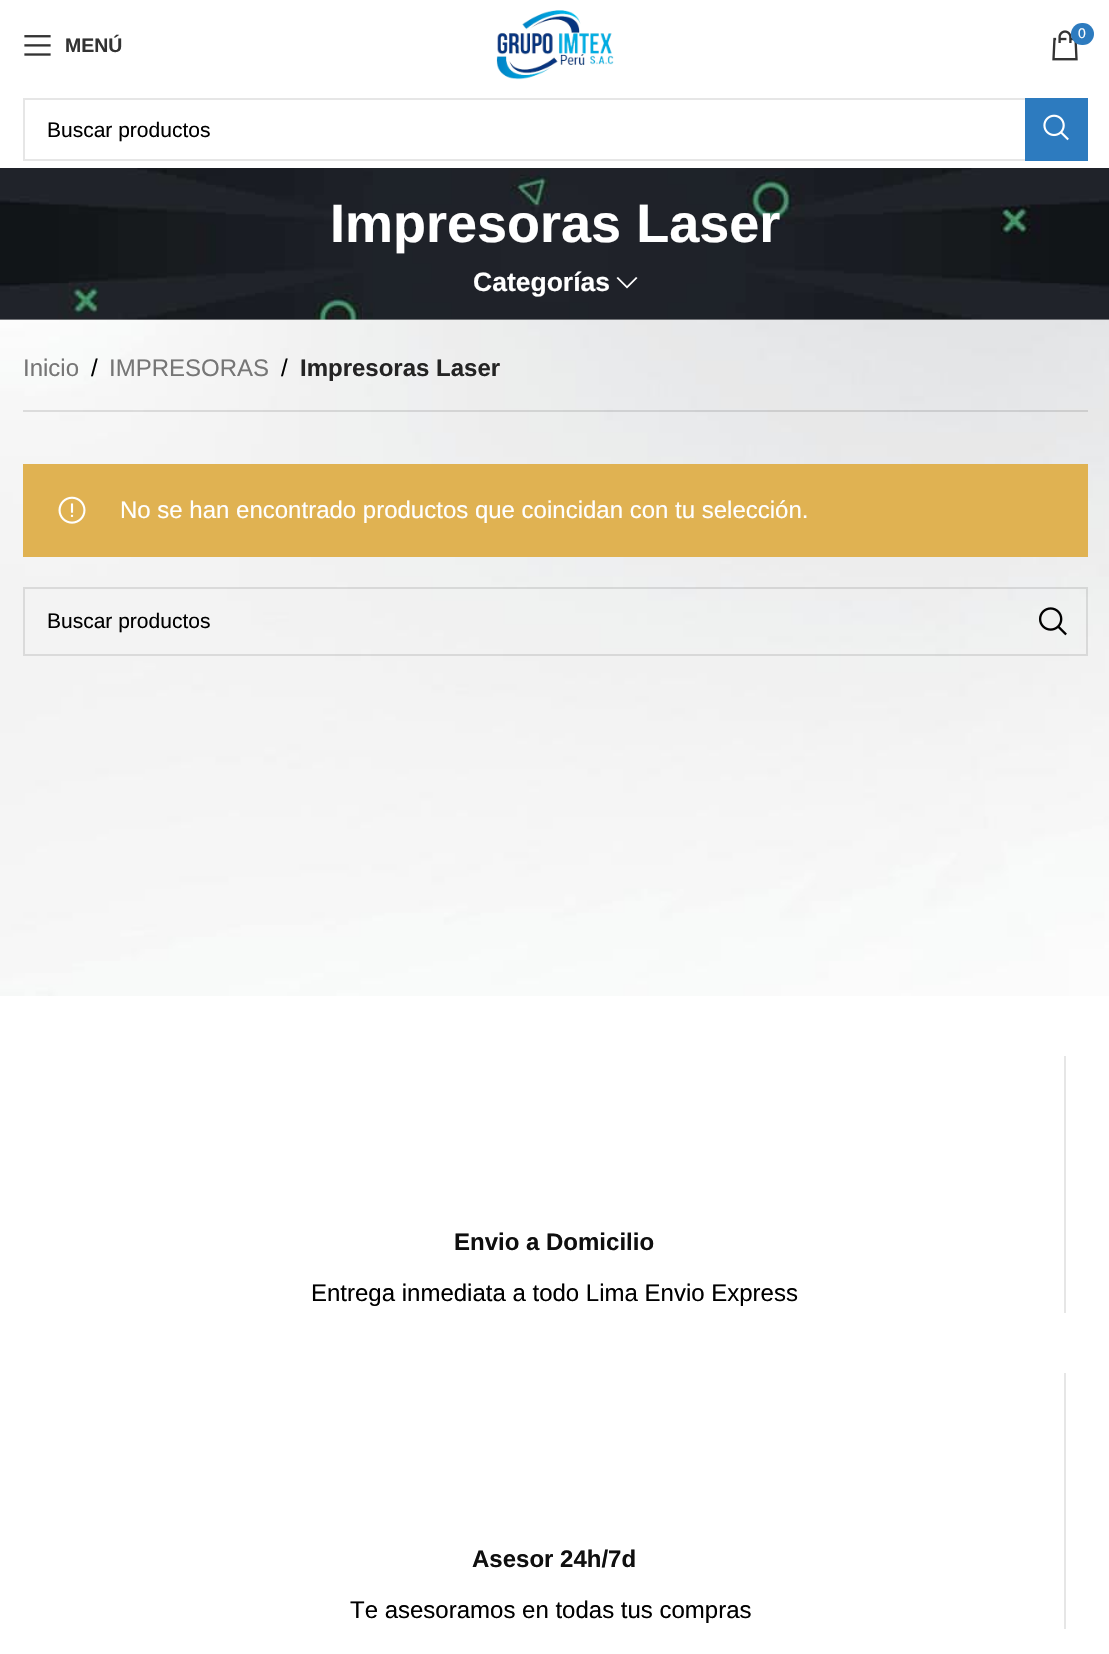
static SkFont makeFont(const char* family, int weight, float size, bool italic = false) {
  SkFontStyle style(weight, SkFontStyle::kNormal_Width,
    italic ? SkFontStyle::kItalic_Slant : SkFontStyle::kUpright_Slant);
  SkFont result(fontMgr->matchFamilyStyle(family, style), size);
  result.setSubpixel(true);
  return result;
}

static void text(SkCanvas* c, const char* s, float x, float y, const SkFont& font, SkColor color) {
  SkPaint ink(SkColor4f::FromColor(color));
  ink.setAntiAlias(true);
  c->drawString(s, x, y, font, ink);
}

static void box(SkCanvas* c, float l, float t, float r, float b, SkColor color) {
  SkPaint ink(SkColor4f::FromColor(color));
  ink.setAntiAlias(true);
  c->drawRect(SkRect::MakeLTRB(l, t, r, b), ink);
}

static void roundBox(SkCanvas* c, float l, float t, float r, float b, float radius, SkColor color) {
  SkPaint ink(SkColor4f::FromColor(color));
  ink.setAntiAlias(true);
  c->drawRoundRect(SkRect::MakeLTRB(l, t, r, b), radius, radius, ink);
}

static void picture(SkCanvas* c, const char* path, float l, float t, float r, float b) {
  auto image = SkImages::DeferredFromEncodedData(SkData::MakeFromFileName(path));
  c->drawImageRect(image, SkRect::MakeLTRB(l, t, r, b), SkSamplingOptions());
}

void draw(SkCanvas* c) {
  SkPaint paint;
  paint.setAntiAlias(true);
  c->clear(0xffffffff);
  picture(c, "img_01.png", 24, 35, 51, 56);
  SkFont face1 = makeFont("Liberation Sans", 700, 19.5f);
  text(c, "MENÚ", 65, 52, face1, 0xff333333);
  picture(c, "img_02.png", 496, 10, 614, 80);
  picture(c, "img_03.png", 1052, 30, 1078, 61);
  roundBox(c, 1071, 23, 1094, 45, 11, 0xff2d7bbf);
  SkFont face2 = makeFont("Liberation Sans", 400, 14);
  text(c, "0", 1078, 38, face2, 0xffffffff);
  paint.setStyle(SkPaint::kStroke_Style);
  paint.setStrokeWidth(2);
  paint.setColor(0xffe6e6e6);
  c->drawRect(SkRect::MakeLTRB(24, 99, 1087, 160), paint);
  SkFont face3 = makeFont("Liberation Sans", 400, 21);
  text(c, "Buscar productos", 47, 137, face3, 0xff000000);
  box(c, 1025, 98, 1088, 161, 0xff2d7bbf);
  picture(c, "img_04.png", 1043, 114, 1069, 141);
  picture(c, "img_05.png", 0, 320, 1109, 996);
  box(c, 0, 319, 1109, 320, 0xffc6c6c6);
  picture(c, "img_06.png", 0, 168, 1109, 320);
  SkFont face4 = makeFont("Liberation Sans", 700, 54);
  text(c, "Impresoras Laser", 330, 242, face4, 0xffffffff);
  SkFont face5 = makeFont("Liberation Sans", 700, 26.5f);
  text(c, "Categorías", 473, 291, face5, 0xffffffff);
  paint.setStyle(SkPaint::kFill_Style);
  paint.setColor(0xffffffff);
  c->drawPath(SkPathBuilder().moveTo(636, 277).lineTo(627, 286).lineTo(618, 277).lineTo(616.5f, 278).lineTo(627, 288.5f).lineTo(637.5f, 278).close().detach(), paint);
  box(c, 23, 410, 1088, 412, 0x1c000000);
  SkFont face6 = makeFont("Liberation Sans", 400, 24);
  text(c, "Inicio", 23, 376, face6, 0xff767676);
  text(c, "/", 91, 376, face6, 0xff000000);
  text(c, "IMPRESORAS", 109, 376, face6, 0xff767676);
  text(c, "/", 281, 376, face6, 0xff000000);
  SkFont face7 = makeFont("Liberation Sans", 700, 24);
  text(c, "Impresoras Laser", 300, 376, face7, 0xff242424);
  box(c, 23, 464, 1088, 557, 0xffe0b252);
  picture(c, "img_07.png", 58, 496, 86, 524);
  text(c, "No se han encontrado productos que coincidan con tu selección.", 120, 518, face6, 0xffffffff);
  paint.setStyle(SkPaint::kStroke_Style);
  paint.setColor(0x1a000000);
  c->drawRect(SkRect::MakeLTRB(24, 588, 1087, 655), paint);
  text(c, "Buscar productos", 47, 628, face3, 0xff000000);
  picture(c, "img_08.png", 1039, 607, 1067, 636);
  box(c, 1064, 1056, 1066, 1313, 0xffe6e6e6);
  text(c, "Envio a Domicilio", 454, 1250, face7, 0xff0f0f0f);
  text(c, "Entrega inmediata a todo Lima Envio Express", 311, 1301, face6, 0xff000000);
  box(c, 1064, 1373, 1066, 1629, 0xffe6e6e6);
  text(c, "Asesor 24h/7d", 472, 1567, face7, 0xff0f0f0f);
  text(c, "Te asesoramos en todas tus compras", 350, 1618, face6, 0xff000000);
}
